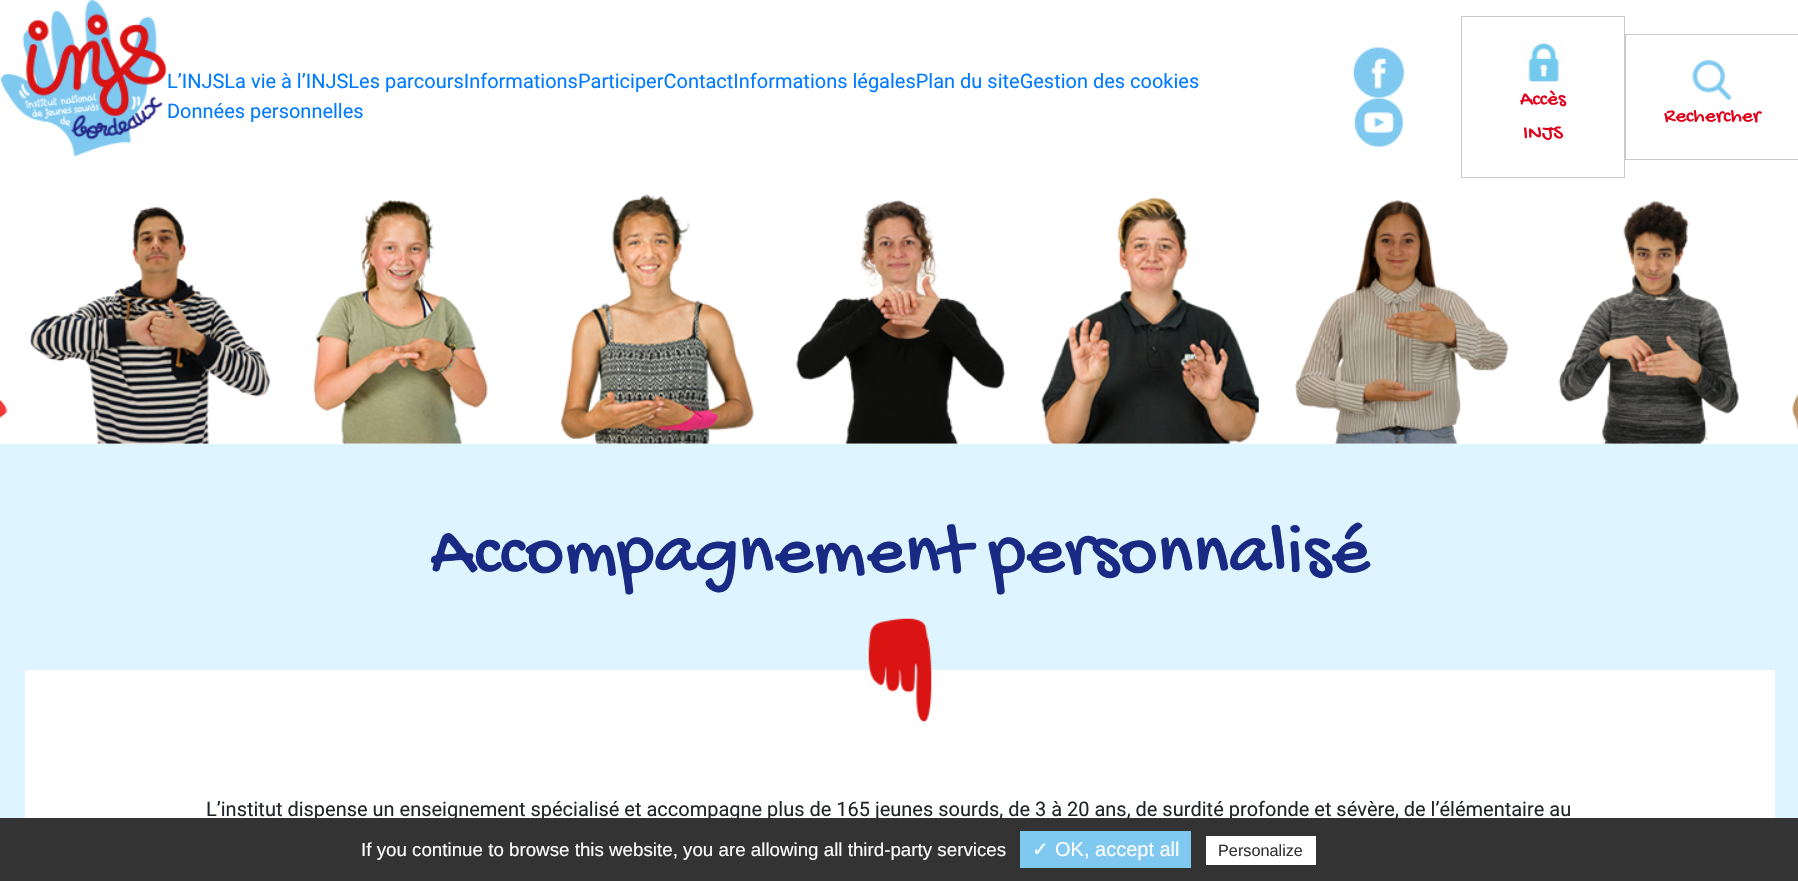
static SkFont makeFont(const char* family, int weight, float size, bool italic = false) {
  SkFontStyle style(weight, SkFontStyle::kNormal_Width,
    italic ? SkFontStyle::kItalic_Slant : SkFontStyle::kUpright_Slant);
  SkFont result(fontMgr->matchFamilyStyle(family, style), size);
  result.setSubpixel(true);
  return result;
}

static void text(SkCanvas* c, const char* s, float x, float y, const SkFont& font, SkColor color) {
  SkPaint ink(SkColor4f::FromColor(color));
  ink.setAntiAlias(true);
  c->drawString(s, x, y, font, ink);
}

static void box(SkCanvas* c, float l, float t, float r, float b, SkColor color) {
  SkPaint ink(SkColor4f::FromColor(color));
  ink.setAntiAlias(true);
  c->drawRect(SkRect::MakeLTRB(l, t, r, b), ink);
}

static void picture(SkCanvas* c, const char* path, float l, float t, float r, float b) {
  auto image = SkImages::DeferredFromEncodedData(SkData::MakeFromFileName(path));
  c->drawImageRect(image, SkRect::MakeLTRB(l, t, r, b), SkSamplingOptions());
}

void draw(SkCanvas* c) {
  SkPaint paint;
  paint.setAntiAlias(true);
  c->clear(0xffffffff);
  picture(c, "img_01.png", 0, 0, 167, 157);
  SkFont face1 = makeFont("Roboto", 400, 20);
  text(c, "L’INJSLa vie à l’INJSLes parcoursInformationsParticiperContactInformations légalesPlan du siteGestion des cookies", 167, 88, face1, 0xff007bff);
  text(c, "Données personnelles", 167, 118, face1, 0xff007bff);
  picture(c, "img_02.png", 1353, 47, 1404, 98);
  picture(c, "img_03.png", 1353, 97, 1404, 148);
  paint.setStyle(SkPaint::kStroke_Style);
  paint.setStrokeWidth(1);
  paint.setColor(0xffcacaca);
  c->drawRect(SkRect::MakeLTRB(1461.5f, 16.5f, 1624.5f, 177.5f), paint);
  picture(c, "img_04.png", 1524, 42, 1564, 83);
  SkFont face2 = makeFont("Gochi Hand", 400, 21.25f);
  text(c, "Accès", 1520, 104, face2, 0xffe1001a);
  text(c, "INJS", 1523, 138, face2, 0xffe1001a);
  c->drawRect(SkRect::MakeLTRB(1625.5f, 34.5f, 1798.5f, 159.5f), paint);
  picture(c, "img_05.png", 1692, 60, 1732, 100);
  text(c, "Rechercher", 1664, 121, face2, 0xffe1001a);
  picture(c, "img_06.png", 0, 399, 8, 419);
  picture(c, "img_07.png", 30, 206, 271, 444);
  picture(c, "img_08.png", 313, 199, 488, 444);
  picture(c, "img_09.png", 561, 194, 754, 444);
  picture(c, "img_10.png", 796, 200, 1006, 444);
  picture(c, "img_11.png", 1041, 197, 1259, 444);
  picture(c, "img_12.png", 1295, 199, 1509, 444);
  picture(c, "img_13.png", 1558, 201, 1739, 444);
  picture(c, "img_14.png", 1792, 393, 1798, 430);
  box(c, 0, 444, 1798, 818, 0xffdef5ff);
  SkFont face3 = makeFont("Gochi Hand", 400, 75);
  text(c, "Accompagnement personnalisé", 430, 570, face3, 0xff182a83);
  box(c, 25, 670, 1775, 818, 0xffffffff);
  picture(c, "img_15.png", 868, 618, 932, 722);
  text(c, "L’institut dispense un enseignement spécialisé et accompagne plus de 165 jeunes sourds, de 3 à 20 ans, de surdité profonde et sévère, de l’élémentaire au", 206, 816, face1, 0xff212529);
  box(c, 0, 818, 1798, 881, 0xff333333);
  SkFont face4 = makeFont("Liberation Sans", 400, 18.75f);
  text(c, "If you continue to browse this website, you are allowing all third-party services", 361, 856, face4, 0xffffffff);
  box(c, 1020, 831, 1191, 868, 0xff7fc9f0);
  SkFont face5 = makeFont("DejaVu Sans", 400, 20);
  text(c, "✓", 1032, 856, face5, 0xffffffff);
  SkFont face6 = makeFont("Liberation Sans", 400, 20);
  text(c, "OK, accept all", 1055, 856, face6, 0xffffffff);
  box(c, 1206, 836, 1316, 865, 0xffffffff);
  SkFont face7 = makeFont("Liberation Sans", 400, 16.25f);
  text(c, "Personalize", 1218, 856, face7, 0xff333333);
}
